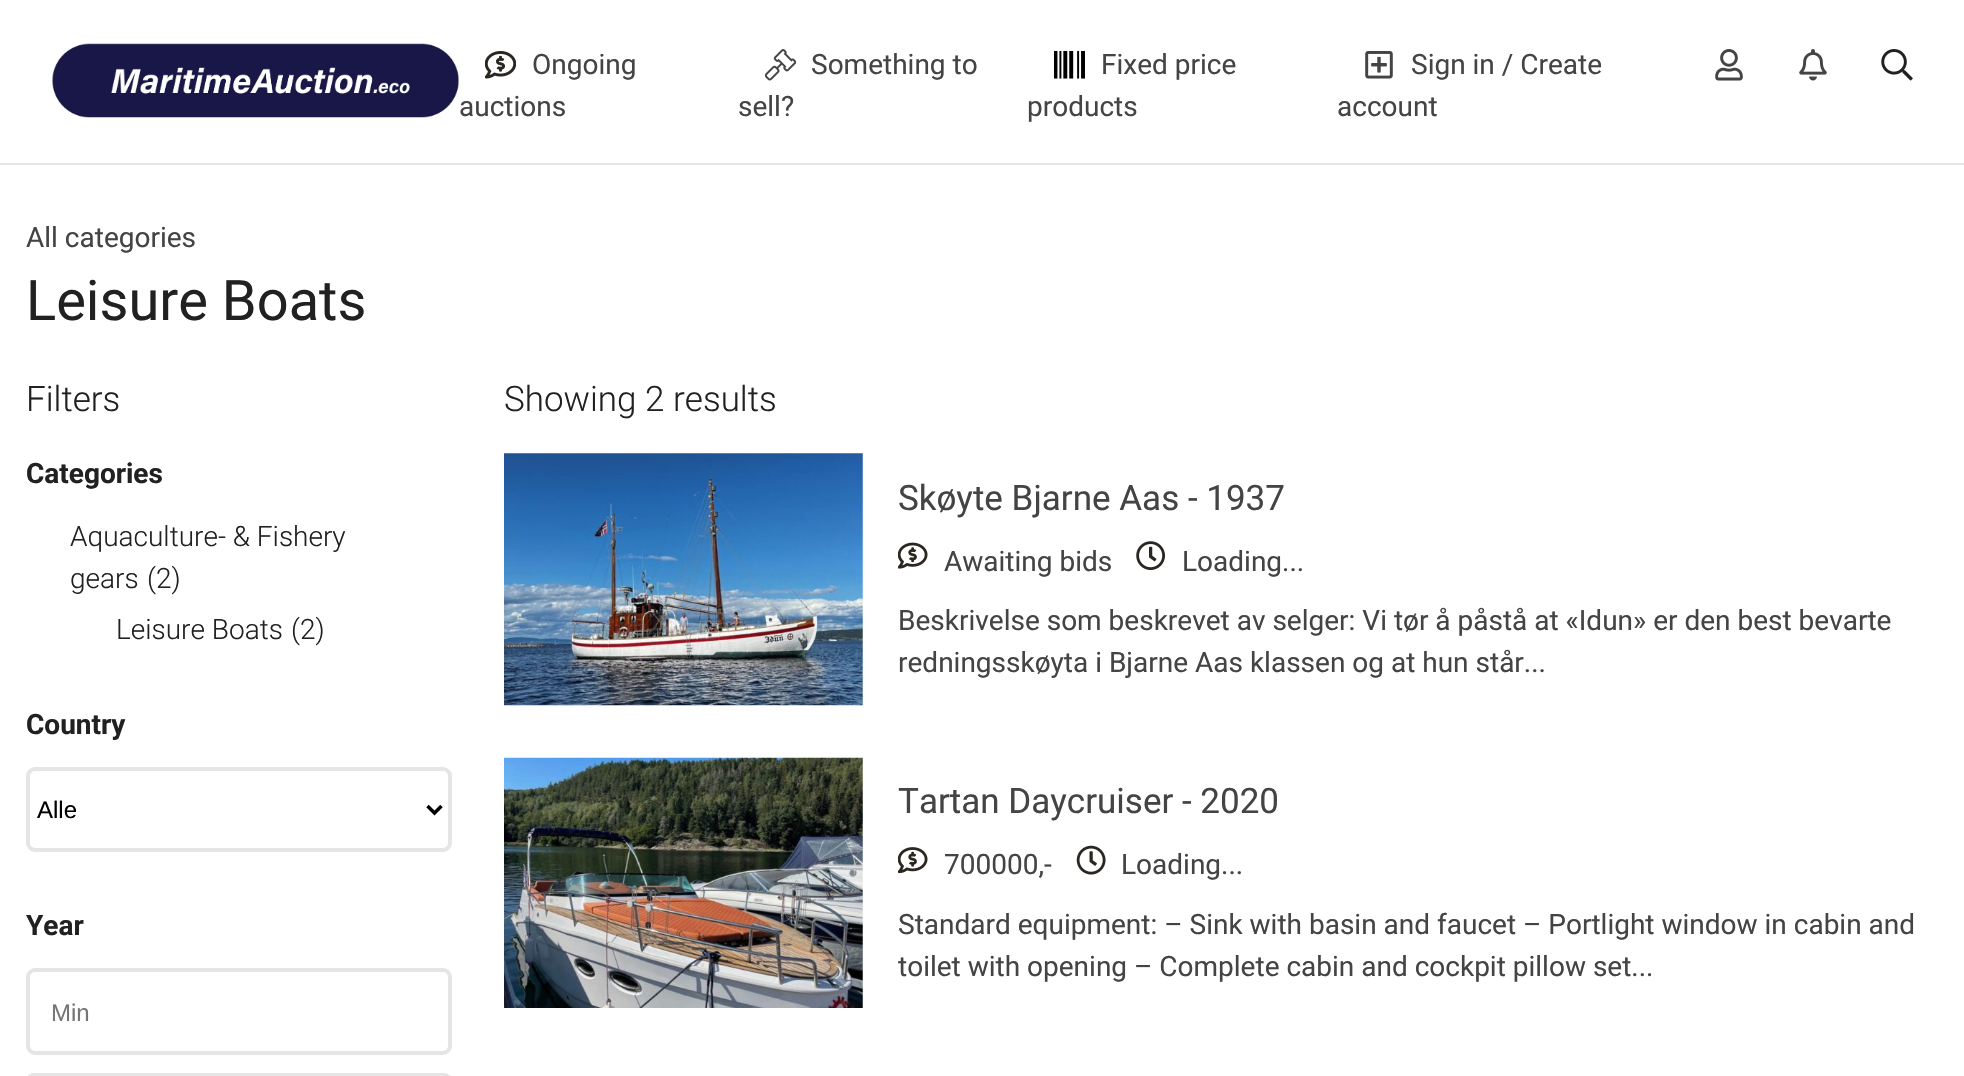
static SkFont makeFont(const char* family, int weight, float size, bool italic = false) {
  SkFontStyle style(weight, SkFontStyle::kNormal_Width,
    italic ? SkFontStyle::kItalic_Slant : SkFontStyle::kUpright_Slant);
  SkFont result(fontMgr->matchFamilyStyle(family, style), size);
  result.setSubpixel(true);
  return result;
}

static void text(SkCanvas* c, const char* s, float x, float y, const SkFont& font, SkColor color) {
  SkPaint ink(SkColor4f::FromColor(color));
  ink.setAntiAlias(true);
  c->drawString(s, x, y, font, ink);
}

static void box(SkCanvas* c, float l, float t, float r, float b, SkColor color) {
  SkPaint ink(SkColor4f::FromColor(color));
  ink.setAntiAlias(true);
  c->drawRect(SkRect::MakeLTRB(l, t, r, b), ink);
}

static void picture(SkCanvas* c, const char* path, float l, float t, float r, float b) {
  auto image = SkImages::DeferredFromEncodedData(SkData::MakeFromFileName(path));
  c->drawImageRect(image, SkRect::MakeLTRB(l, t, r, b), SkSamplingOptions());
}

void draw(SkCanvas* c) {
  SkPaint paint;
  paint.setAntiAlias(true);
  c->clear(0xffffffff);
  box(c, 0, 163, 1964, 165, 0xffe5e5e5);
  picture(c, "img_01.png", 52, 43, 459, 118);
  picture(c, "img_02.png", 485, 51, 516, 79);
  SkFont face1 = makeFont("Roboto", 400, 28);
  text(c, "Ongoing", 532, 74, face1, 0xff444444);
  text(c, "auctions", 459, 116, face1, 0xff444444);
  picture(c, "img_03.png", 765, 49, 796, 81);
  text(c, "Something to", 811, 74, face1, 0xff444444);
  text(c, "sell?", 738, 116, face1, 0xff444444);
  picture(c, "img_04.png", 1054, 50, 1085, 79);
  text(c, "Fixed price", 1101, 74, face1, 0xff444444);
  text(c, "products", 1027, 116, face1, 0xff444444);
  picture(c, "img_05.png", 1365, 51, 1393, 79);
  text(c, "Sign in / Create", 1411, 74, face1, 0xff444444);
  text(c, "account", 1337, 116, face1, 0xff444444);
  picture(c, "img_06.png", 1715, 49, 1743, 81);
  picture(c, "img_07.png", 1799, 49, 1827, 81);
  picture(c, "img_08.png", 1881, 49, 1913, 81);
  text(c, "All categories", 26, 247, face1, 0xff444444);
  SkFont face2 = makeFont("Roboto", 400, 56);
  text(c, "Leisure Boats", 26, 320, face2, 0xff212121);
  SkFont face3 = makeFont("Roboto", 300, 35);
  text(c, "Filters", 26, 411, face3, 0xff212121);
  SkFont face4 = makeFont("Roboto", 700, 28);
  text(c, "Categories", 26, 483, face4, 0xff212121);
  SkFont face5 = makeFont("Roboto", 300, 28);
  text(c, "Aquaculture- & Fishery", 70, 546, face5, 0xff212121);
  text(c, "gears", 70, 588, face5, 0xff212121);
  text(c, "(2)", 147, 588, face5, 0xff212121);
  text(c, "Leisure Boats", 116, 639, face5, 0xff212121);
  text(c, "(2)", 291, 639, face5, 0xff212121);
  text(c, "Country", 26, 734, face4, 0xff212121);
  paint.setStyle(SkPaint::kStroke_Style);
  paint.setStrokeWidth(4);
  paint.setColor(0xffe5e5e5);
  c->drawRoundRect(SkRect::MakeLTRB(28, 769, 450, 850), 7, 7, paint);
  paint.setStrokeWidth(3.5f);
  paint.setColor(0xff000000);
  c->drawPath(SkPathBuilder().moveTo(427.5f, 806).lineTo(434.5f, 813).lineTo(441.5f, 806).detach(), paint);
  SkFont face6 = makeFont("Liberation Sans", 400, 24);
  text(c, "Alle", 37, 818, face6, 0xff000000);
  text(c, "Year", 26, 935, face4, 0xff212121);
  paint.setStrokeWidth(4);
  paint.setColor(0xffe5e5e5);
  c->drawRoundRect(SkRect::MakeLTRB(28, 970, 450, 1053), 7, 7, paint);
  text(c, "Min", 51, 1021, face6, 0xff757575);
  c->drawRoundRect(SkRect::MakeLTRB(28, 1075, 450, 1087), 7, 7, paint);
  text(c, "Showing 2 results", 504, 411, face3, 0xff212121);
  picture(c, "img_09.png", 504, 453, 863, 706);
  SkFont face7 = makeFont("Roboto", 400, 35);
  text(c, "Skøyte Bjarne Aas - 1937", 898, 510, face7, 0xff444444);
  picture(c, "img_10.png", 898, 542, 928, 569);
  text(c, "Awaiting bids", 944, 571, face1, 0xff444444);
  picture(c, "img_11.png", 1136, 541, 1165, 570);
  text(c, "Loading...", 1182, 571, face1, 0xff444444);
  text(c, "Beskrivelse som beskrevet av selger: Vi tør å påstå at «Idun» er den best bevarte", 898, 630, face1, 0xff444444);
  text(c, "redningsskøyta i Bjarne Aas klassen og at hun står...", 898, 672, face1, 0xff444444);
  picture(c, "img_12.png", 504, 757, 863, 1008);
  text(c, "Tartan Daycruiser - 2020", 898, 813, face7, 0xff444444);
  picture(c, "img_13.png", 898, 847, 928, 874);
  text(c, "700000,-", 944, 874, face1, 0xff444444);
  picture(c, "img_14.png", 1076, 845, 1106, 875);
  text(c, "Loading...", 1121, 874, face1, 0xff444444);
  text(c, "Standard equipment: – Sink with basin and faucet – Portlight window in cabin and", 898, 934, face1, 0xff444444);
  text(c, "toilet with opening – Complete cabin and cockpit pillow set...", 898, 976, face1, 0xff444444);
}
